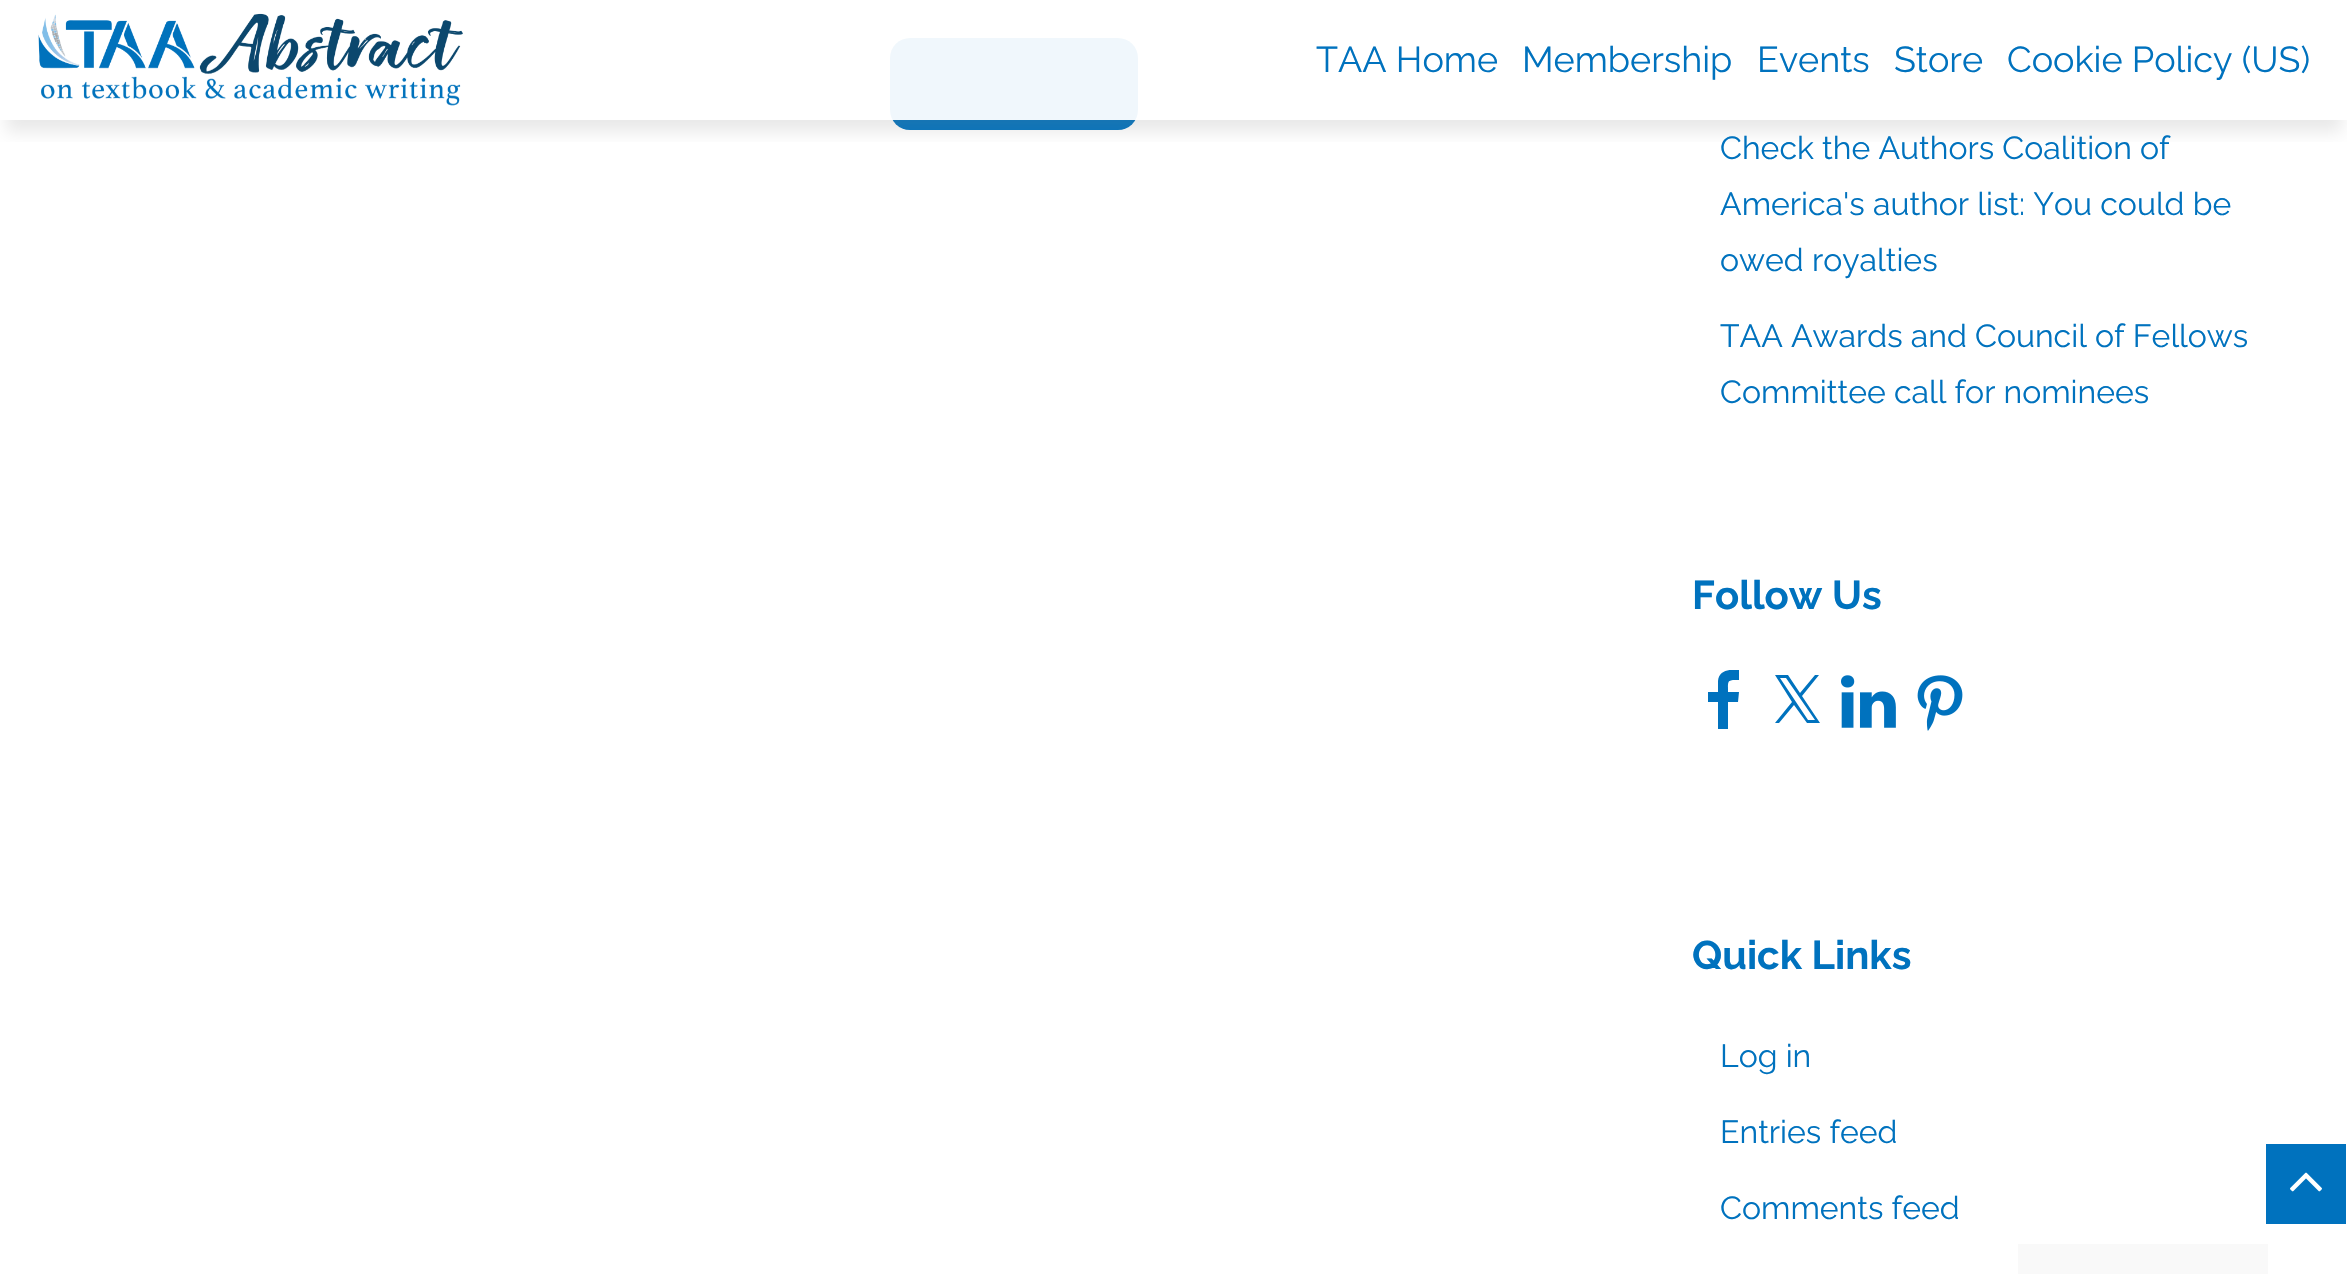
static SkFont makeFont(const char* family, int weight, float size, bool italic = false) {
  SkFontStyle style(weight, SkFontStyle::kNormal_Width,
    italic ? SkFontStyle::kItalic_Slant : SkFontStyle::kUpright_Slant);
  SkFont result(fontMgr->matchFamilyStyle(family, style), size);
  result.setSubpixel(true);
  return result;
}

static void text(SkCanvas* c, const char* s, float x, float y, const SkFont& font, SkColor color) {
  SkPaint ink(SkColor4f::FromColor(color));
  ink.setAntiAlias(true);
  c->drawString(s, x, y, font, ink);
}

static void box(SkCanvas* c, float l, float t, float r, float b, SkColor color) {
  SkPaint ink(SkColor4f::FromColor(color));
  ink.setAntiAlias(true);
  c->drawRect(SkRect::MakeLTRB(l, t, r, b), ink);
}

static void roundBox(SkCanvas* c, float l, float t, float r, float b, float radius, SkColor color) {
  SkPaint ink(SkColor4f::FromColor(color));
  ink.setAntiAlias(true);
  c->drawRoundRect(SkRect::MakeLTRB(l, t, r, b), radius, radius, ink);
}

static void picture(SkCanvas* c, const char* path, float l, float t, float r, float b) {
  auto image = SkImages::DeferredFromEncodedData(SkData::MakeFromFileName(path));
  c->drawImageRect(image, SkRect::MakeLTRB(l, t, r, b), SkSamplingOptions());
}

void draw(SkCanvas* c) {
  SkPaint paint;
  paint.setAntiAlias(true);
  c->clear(0xffffffff);
  roundBox(c, 890, 38, 1138, 130, 20, 0xff0072be);
  c->save();
  c->clipRect(SkRect::MakeLTRB(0, 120, 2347, 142));
  paint.setColor(0x2e828282);
  paint.setMaskFilter(SkMaskFilter::MakeBlur(kNormal_SkBlurStyle, 8));
  c->drawRect(SkRect::MakeLTRB(6, 24, 2342, 132), paint);
  paint.setMaskFilter(nullptr);
  c->restore();
  box(c, 890, 38, 1138, 120, 0xf0ffffff);
  picture(c, "img_01.png", 38, 13, 463, 106);
  SkFont face1 = makeFont("Raleway", 400, 36);
  text(c, "TAA Home", 1316, 72, face1, 0xff0072be);
  text(c, "Membership", 1522, 72, face1, 0xff0072be);
  text(c, "Events", 1757, 72, face1, 0xff0072be);
  text(c, "Store", 1894, 72, face1, 0xff0072be);
  text(c, "Cookie Policy (US)", 2007, 72, face1, 0xff0072be);
  SkFont face2 = makeFont("Raleway", 400, 32);
  text(c, "Check the Authors Coalition of", 1720, 159, face2, 0xff0072be);
  text(c, "America's author list: You could be", 1720, 215, face2, 0xff0072be);
  text(c, "owed royalties", 1720, 271, face2, 0xff0072be);
  text(c, "TAA Awards and Council of Fellows", 1720, 347, face2, 0xff0072be);
  text(c, "Committee call for nominees", 1720, 403, face2, 0xff0072be);
  SkFont face3 = makeFont("Raleway", 700, 40);
  text(c, "Follow Us", 1692, 609, face3, 0xff0072be);
  c->save();
  c->clipRect(SkRect::MakeLTRB(1692, 670, 1756, 734));
  paint.setColor(0xff0072be);
  c->drawPath(SkPathBuilder().moveTo(1739, 670).lineTo(1739, 680).cubicTo(1727, 680, 1728, 680, 1728, 692).lineTo(1739, 692).lineTo(1738, 702).lineTo(1728, 702).lineTo(1728, 729).lineTo(1718, 729).lineTo(1718, 702).lineTo(1708, 702).lineTo(1708, 692).lineTo(1718, 692).lineTo(1718, 681).cubicTo(1719, 670, 1730, 669, 1739, 670).close().detach(), paint);
  c->restore();
  c->drawPath(SkPathBuilder().moveTo(1802, 696).lineTo(1819, 675).lineTo(1815, 675).lineTo(1800, 693).lineTo(1788, 675).lineTo(1775, 675).lineTo(1792, 702).lineTo(1775, 723).lineTo(1779, 723).lineTo(1794, 705).lineTo(1807, 723).lineTo(1820, 723).close().moveTo(1796, 702).lineTo(1780, 678).lineTo(1786, 678).lineTo(1815, 720).lineTo(1808, 720).close().detach(), paint);
  picture(c, "img_02.png", 1841, 675, 1896, 728);
  picture(c, "img_03.png", 1917, 675, 1963, 731);
  text(c, "Quick Links", 1692, 969, face3, 0xff0072be);
  text(c, "Log in", 1720, 1067, face2, 0xff0072be);
  text(c, "Entries feed", 1720, 1143, face2, 0xff0072be);
  text(c, "Comments feed", 1720, 1219, face2, 0xff0072be);
  box(c, 2266, 1144, 2346, 1224, 0xff0072be);
  picture(c, "img_04.png", 2290, 1172, 2322, 1192);
  box(c, 2018, 1244, 2268, 1274, 0xfff9f9f9);
}
